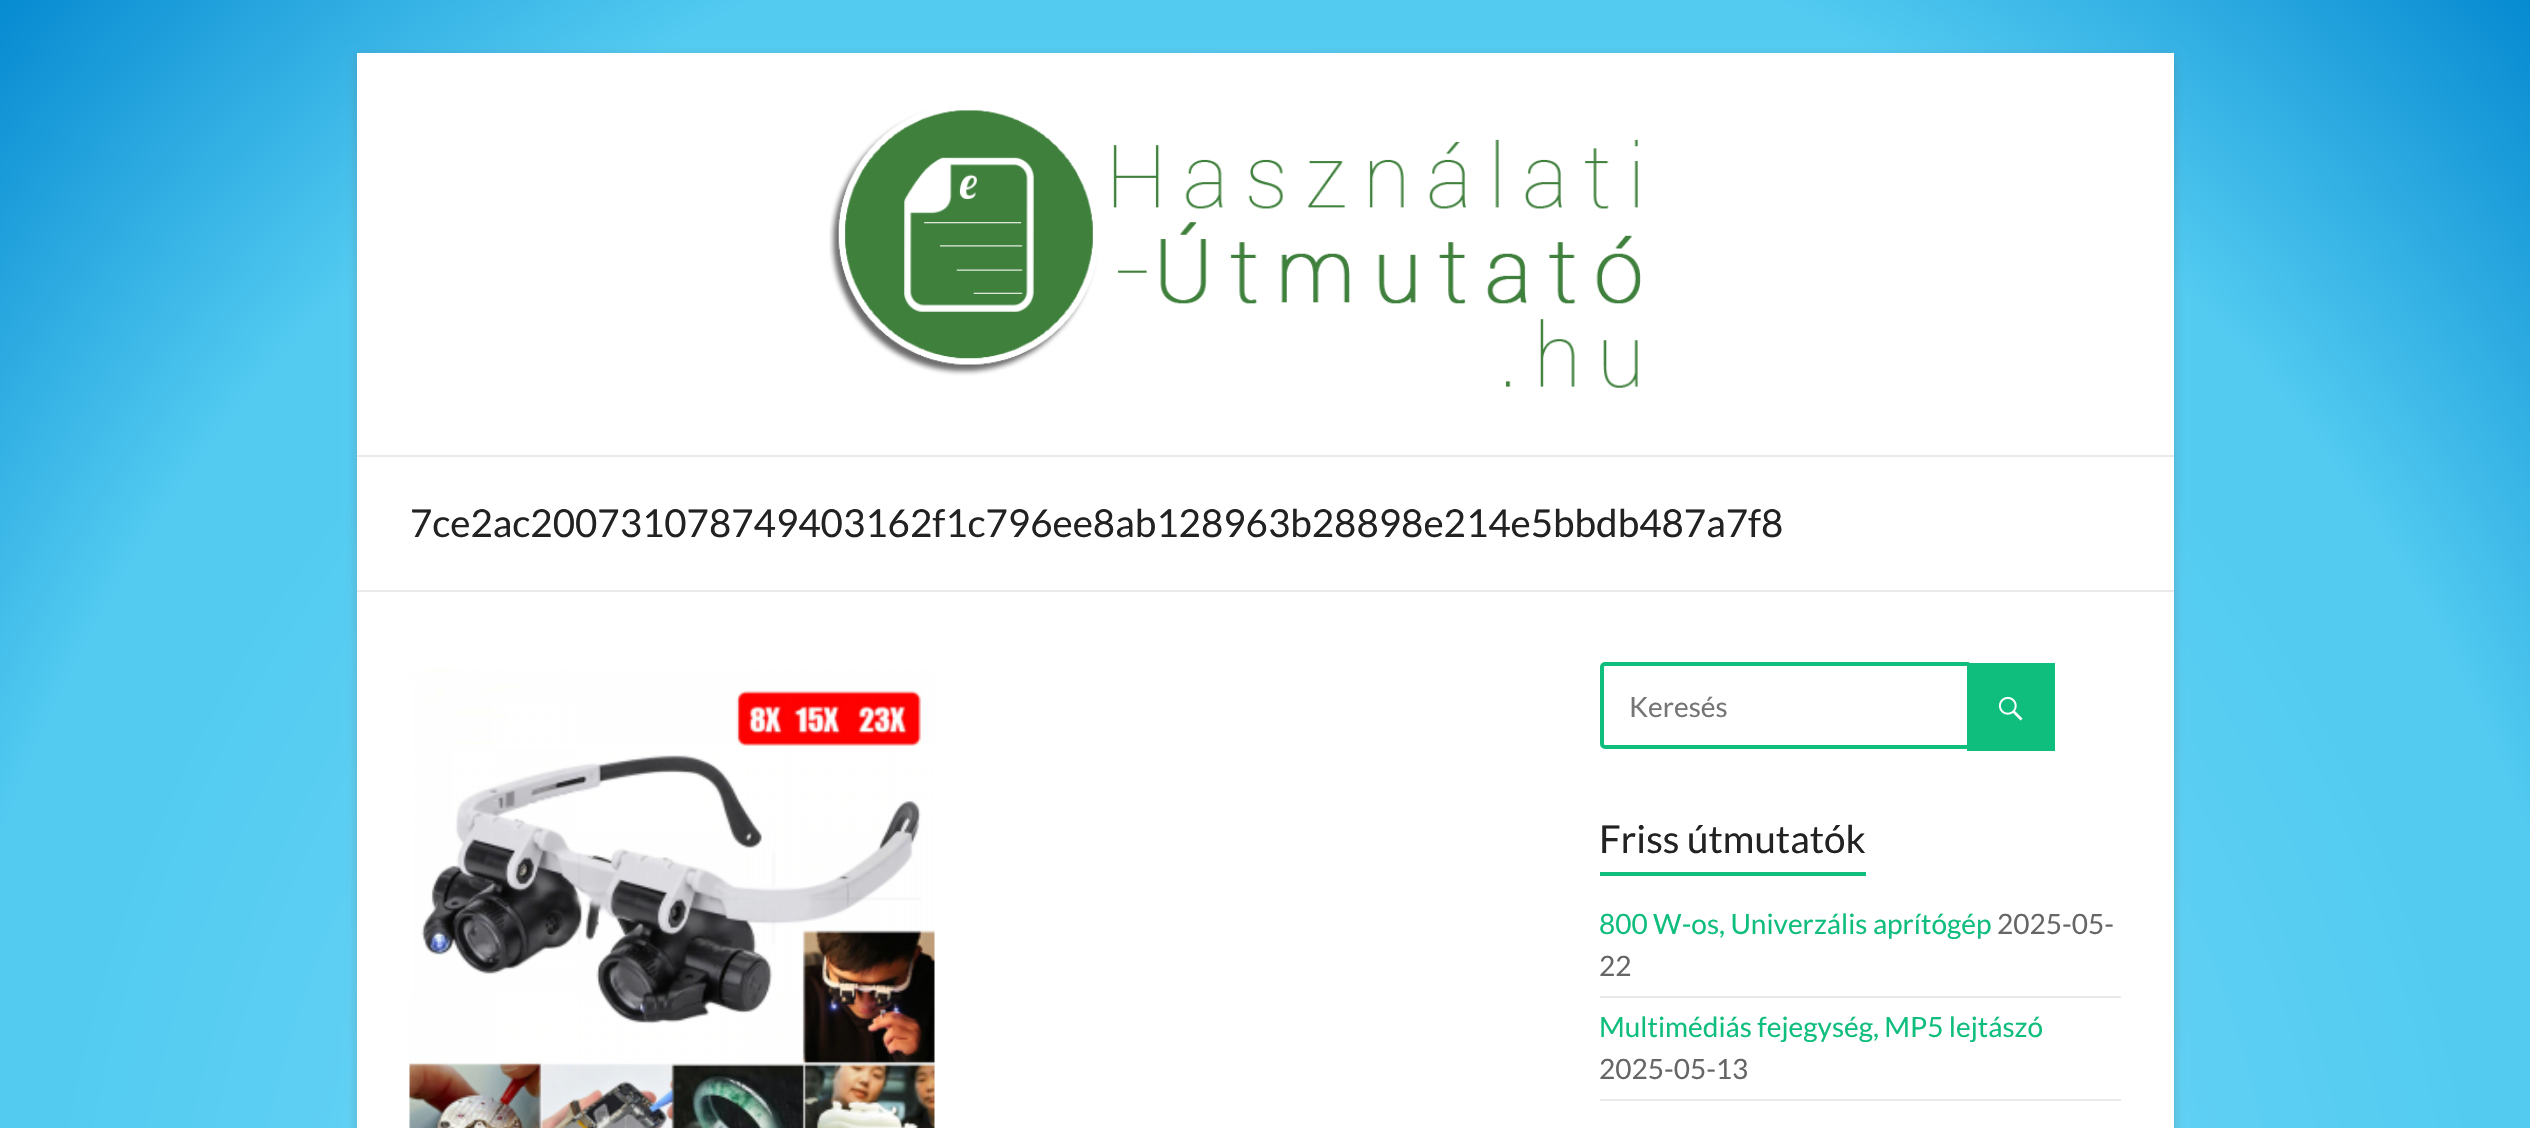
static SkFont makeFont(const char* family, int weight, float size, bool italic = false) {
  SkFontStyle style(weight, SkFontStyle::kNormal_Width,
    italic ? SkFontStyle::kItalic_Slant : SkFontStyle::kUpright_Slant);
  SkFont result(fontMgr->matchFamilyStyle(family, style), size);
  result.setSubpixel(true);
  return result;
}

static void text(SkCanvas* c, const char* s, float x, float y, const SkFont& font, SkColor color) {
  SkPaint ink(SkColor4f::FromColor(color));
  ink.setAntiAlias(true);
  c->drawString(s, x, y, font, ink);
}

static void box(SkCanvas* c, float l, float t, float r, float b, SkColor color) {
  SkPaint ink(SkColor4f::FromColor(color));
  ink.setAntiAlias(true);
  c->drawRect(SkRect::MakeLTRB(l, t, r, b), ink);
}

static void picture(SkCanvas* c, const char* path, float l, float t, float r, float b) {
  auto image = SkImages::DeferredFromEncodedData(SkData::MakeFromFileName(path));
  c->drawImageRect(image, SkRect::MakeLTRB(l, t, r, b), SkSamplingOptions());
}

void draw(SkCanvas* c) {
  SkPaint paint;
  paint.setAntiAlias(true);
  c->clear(0xffffffff);
  {
    const SkColor colors[] = {0xff87e0fd, 0xff53cbf1, 0xff53cbf1, 0xff068ad1};
    const float stops[] = {0, 0.69f, 0.76f, 1};
    SkMatrix m = SkMatrix::Translate(1265, 1408).preScale(1789, 1991);
    paint.setShader(SkGradientShader::MakeRadial({0, 0}, 1, colors, stops, 4, SkTileMode::kClamp, 0, &m));
    paint.setAlpha(255);
  }
  c->drawRect(SkRect::MakeLTRB(0, 0, 2530, 1128), paint);
  paint.setShader(nullptr);
  paint.setColor(0x4d646464);
  paint.setMaskFilter(SkMaskFilter::MakeBlur(kNormal_SkBlurStyle, 5));
  c->drawRect(SkRect::MakeLTRB(357, 56, 2174, 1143), paint);
  paint.setMaskFilter(nullptr);
  box(c, 357, 53, 2174, 1128, 0xffffffff);
  box(c, 357, 455, 2174, 457, 0xffeaeaea);
  picture(c, "img_01.png", 829, 110, 1641, 388);
  box(c, 357, 590, 2174, 592, 0xffeaeaea);
  SkFont face1 = makeFont("Lato", 400, 38.5f);
  text(c, "7ce2ac200731078749403162f1c796ee8ab128963b28898e214e5bbdb487a7f8", 410, 537, face1, 0xff222222);
  picture(c, "img_02.png", 409, 668, 935, 1128);
  paint.setStyle(SkPaint::kStroke_Style);
  paint.setStrokeWidth(4);
  paint.setColor(0xff0fbe7c);
  c->drawRoundRect(SkRect::MakeLTRB(1602, 664, 1970, 747), 3, 3, paint);
  SkFont face2 = makeFont("Lato", 400, 28);
  text(c, "Keresés", 1629, 717, face2, 0xff757575);
  box(c, 1967, 663, 2055, 751, 0xff0fbe7c);
  picture(c, "img_03.png", 1998, 696, 2023, 721);
  text(c, "Friss útmutatók", 1599, 853, face1, 0xff222222);
  box(c, 1600, 872, 1866, 876, 0xff0fbe7c);
  box(c, 1600, 996, 2121, 998, 0xffeaeaea);
  text(c, "800 W-os, Univerzális aprítógép", 1599, 934, face2, 0xff0fbe7c);
  text(c, "2025-05-", 1997, 934, face2, 0xff666666);
  text(c, "22", 1599, 976, face2, 0xff666666);
  box(c, 1600, 1099, 2121, 1101, 0xffeaeaea);
  text(c, "Multimédiás fejegység, MP5 lejtászó", 1599, 1037, face2, 0xff0fbe7c);
  text(c, "2025-05-13", 1599, 1079, face2, 0xff666666);
}
